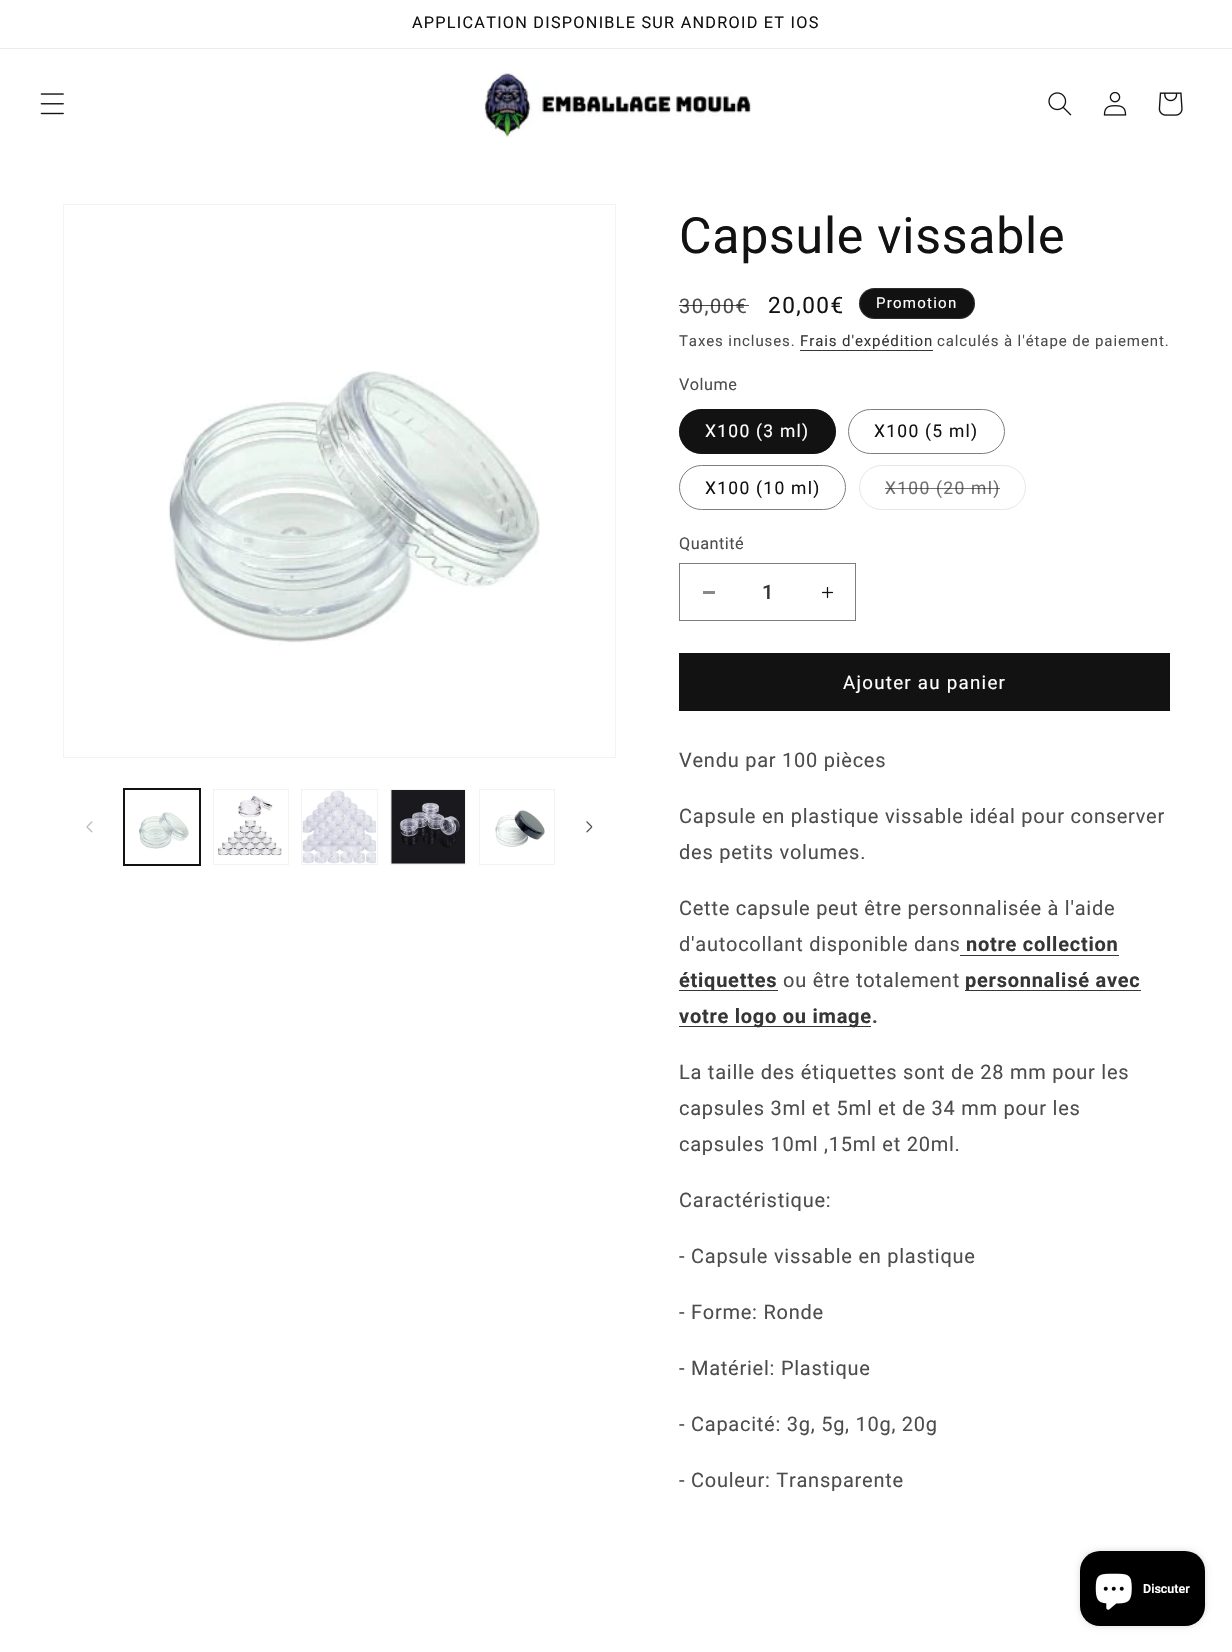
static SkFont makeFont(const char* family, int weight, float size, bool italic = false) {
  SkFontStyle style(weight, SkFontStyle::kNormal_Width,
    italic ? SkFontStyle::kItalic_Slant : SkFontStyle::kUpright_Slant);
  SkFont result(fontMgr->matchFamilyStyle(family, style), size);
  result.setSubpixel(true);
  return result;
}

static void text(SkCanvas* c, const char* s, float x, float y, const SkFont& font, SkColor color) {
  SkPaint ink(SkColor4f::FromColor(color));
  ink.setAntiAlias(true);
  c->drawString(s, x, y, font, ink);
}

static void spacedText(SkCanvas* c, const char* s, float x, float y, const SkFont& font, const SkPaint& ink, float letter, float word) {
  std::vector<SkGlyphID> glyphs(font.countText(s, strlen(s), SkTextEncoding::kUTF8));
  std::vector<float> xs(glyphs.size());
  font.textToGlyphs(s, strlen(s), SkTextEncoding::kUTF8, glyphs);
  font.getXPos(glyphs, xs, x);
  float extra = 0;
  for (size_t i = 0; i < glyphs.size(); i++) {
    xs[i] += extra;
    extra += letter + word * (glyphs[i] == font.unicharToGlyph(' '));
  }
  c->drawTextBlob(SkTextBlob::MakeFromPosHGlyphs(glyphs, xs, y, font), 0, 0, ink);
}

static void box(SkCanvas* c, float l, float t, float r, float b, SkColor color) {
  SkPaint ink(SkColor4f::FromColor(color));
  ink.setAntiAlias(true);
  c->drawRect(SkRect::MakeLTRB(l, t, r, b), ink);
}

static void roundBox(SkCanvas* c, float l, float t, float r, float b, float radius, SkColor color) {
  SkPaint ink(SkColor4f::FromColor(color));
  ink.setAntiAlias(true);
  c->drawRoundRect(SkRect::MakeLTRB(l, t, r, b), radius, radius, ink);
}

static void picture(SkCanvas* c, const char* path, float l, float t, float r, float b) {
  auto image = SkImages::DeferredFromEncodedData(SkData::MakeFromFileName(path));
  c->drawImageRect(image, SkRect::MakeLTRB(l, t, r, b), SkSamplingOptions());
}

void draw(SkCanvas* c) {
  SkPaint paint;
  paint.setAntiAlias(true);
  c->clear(0xffffffff);
  box(c, 0, 48, 1232, 49, 0xffececec);
  SkFont face1 = makeFont("Roboto", 400, 16.25f);
  paint.setColor(0xff121212);
  spacedText(c, "APPLICATION DISPONIBLE SUR ANDROID ET IOS", 412, 28, face1, paint, 1.25f, 0);
  picture(c, "img_01.png", 40, 93, 64, 115);
  picture(c, "img_02.png", 484, 71, 752, 137);
  picture(c, "img_03.png", 1048, 92, 1072, 116);
  picture(c, "img_04.png", 1103, 91, 1127, 116);
  picture(c, "img_05.png", 1158, 92, 1183, 116);
  paint.setStyle(SkPaint::kStroke_Style);
  paint.setStrokeWidth(1);
  paint.setColor(0xfff3f3f3);
  c->drawRect(SkRect::MakeLTRB(63.5f, 204.5f, 615.5f, 757.5f), paint);
  picture(c, "img_06.png", 168, 371, 540, 646);
  picture(c, "img_07.png", 86, 821, 93, 833);
  paint.setColor(0xff121212);
  c->drawRect(SkRect::MakeLTRB(123.5f, 788.5f, 200.5f, 865.5f), paint);
  c->drawRect(SkRect::MakeLTRB(124.5f, 789.5f, 199.5f, 864.5f), paint);
  picture(c, "img_08.png", 139, 812, 189, 849);
  paint.setColor(0xfff3f3f3);
  c->drawRect(SkRect::MakeLTRB(213.5f, 789.5f, 288.5f, 864.5f), paint);
  picture(c, "img_09.png", 218, 795, 282, 856);
  c->drawRect(SkRect::MakeLTRB(301.5f, 789.5f, 377.5f, 864.5f), paint);
  picture(c, "img_10.png", 302, 790, 376, 864);
  c->drawRect(SkRect::MakeLTRB(390.5f, 789.5f, 465.5f, 864.5f), paint);
  picture(c, "img_11.png", 391, 790, 465, 864);
  c->drawRect(SkRect::MakeLTRB(479.5f, 789.5f, 554.5f, 864.5f), paint);
  picture(c, "img_12.png", 495, 810, 545, 847);
  picture(c, "img_13.png", 586, 821, 593, 833);
  SkFont face2 = makeFont("Roboto", 400, 50);
  paint.setStyle(SkPaint::kFill_Style);
  paint.setColor(0xff121212);
  spacedText(c, "Capsule vissable", 679, 253, face2, paint, 0.75f, 0);
  SkFont face3 = makeFont("Roboto", 400, 20);
  paint.setColor(0xff4d4d4d);
  spacedText(c, "30,00€", 679, 313, face3, paint, 1.5f, 0);
  box(c, 679, 305, 749, 306, 0xbf121212);
  SkFont face4 = makeFont("Roboto", 400, 22.5f);
  paint.setColor(0xff121212);
  spacedText(c, "20,00€", 768, 313, face4, paint, 1.5f, 0);
  roundBox(c, 859, 288, 975, 319, 15.5f, 0xff121212);
  paint.setStyle(SkPaint::kStroke_Style);
  paint.setColor(0x1affffff);
  c->drawRoundRect(SkRect::MakeLTRB(859.5f, 288.5f, 974.5f, 318.5f), 15, 15, paint);
  SkFont face5 = makeFont("Roboto", 400, 15);
  paint.setStyle(SkPaint::kFill_Style);
  paint.setColor(0xffffffff);
  spacedText(c, "Promotion", 876, 308, face5, paint, 1.25f, 0);
  paint.setColor(0xff4d4d4d);
  spacedText(c, "Taxes incluses.", 679, 346, face5, paint, 0.9f, 0);
  paint.setColor(0xff363636);
  spacedText(c, "Frais d'expédition", 800, 346, face5, paint, 0.9f, 0);
  box(c, 800, 350, 933, 351, 0xff363636);
  paint.setColor(0xff4d4d4d);
  spacedText(c, "calculés à l'étape de paiement.", 937, 346, face5, paint, 0.9f, 0);
  spacedText(c, "Volume", 679, 390, face1, paint, 0.5f, 0);
  roundBox(c, 679, 409, 836, 454, 22.5f, 0xff121212);
  paint.setStyle(SkPaint::kStroke_Style);
  paint.setColor(0x8c121212);
  c->drawRoundRect(SkRect::MakeLTRB(679.5f, 409.5f, 835.5f, 453.5f), 22, 22, paint);
  SkFont face6 = makeFont("Roboto", 400, 17.5f);
  paint.setStyle(SkPaint::kFill_Style);
  paint.setColor(0xffffffff);
  spacedText(c, "X100 (3 ml)", 705, 437, face6, paint, 1.25f, 0);
  paint.setStyle(SkPaint::kStroke_Style);
  paint.setColor(0xff7d7d7d);
  c->drawRoundRect(SkRect::MakeLTRB(848.5f, 409.5f, 1004.5f, 453.5f), 22, 22, paint);
  paint.setStyle(SkPaint::kFill_Style);
  paint.setColor(0xff121212);
  spacedText(c, "X100 (5 ml)", 874, 437, face6, paint, 1.25f, 0);
  paint.setStyle(SkPaint::kStroke_Style);
  paint.setColor(0xff7d7d7d);
  c->drawRoundRect(SkRect::MakeLTRB(679.5f, 465.5f, 845.5f, 509.5f), 22, 22, paint);
  paint.setStyle(SkPaint::kFill_Style);
  paint.setColor(0xff121212);
  spacedText(c, "X100 (10 ml)", 705, 494, face6, paint, 1.25f, 0);
  paint.setStyle(SkPaint::kStroke_Style);
  paint.setColor(0xffe7e7e7);
  c->drawRoundRect(SkRect::MakeLTRB(859.5f, 465.5f, 1025.5f, 509.5f), 22, 22, paint);
  paint.setStyle(SkPaint::kFill_Style);
  paint.setColor(0xff717171);
  spacedText(c, "X100 (20 ml)", 885, 494, face6, paint, 1.25f, 0);
  box(c, 885, 488, 1000, 489, 0x99121212);
  paint.setColor(0xff4d4d4d);
  spacedText(c, "Quantité", 679, 549, face1, paint, 0.5f, 0);
  box(c, 703, 591, 715, 594, 0xff898989);
  picture(c, "img_14.png", 821, 586, 834, 599);
  paint.setStyle(SkPaint::kStroke_Style);
  paint.setColor(0xff7d7d7d);
  c->drawRect(SkRect::MakeLTRB(679.5f, 563.5f, 855.5f, 620.5f), paint);
  SkFont face7 = makeFont("Roboto", 500, 20);
  text(c, "1", 762, 599, face7, 0xff363636);
  box(c, 679, 653, 1170, 711, 0xff121212);
  SkFont face8 = makeFont("Roboto", 400, 18.75f);
  paint.setStyle(SkPaint::kFill_Style);
  paint.setColor(0xffffffff);
  spacedText(c, "Ajouter au panier", 843, 689, face8, paint, 1.25f, 0);
  paint.setColor(0xff4d4d4d);
  spacedText(c, "Vendu par 100 pièces", 679, 767, face3, paint, 0.75f, 0);
  spacedText(c, "Capsule en plastique vissable idéal pour conserver", 679, 823, face3, paint, 0.75f, 0);
  spacedText(c, "des petits volumes.", 679, 859, face3, paint, 0.75f, 0);
  spacedText(c, "Cette capsule peut être personnalisée à l'aide", 679, 915, face3, paint, 0.75f, 0);
  spacedText(c, "d'autocollant disponible dans", 679, 951, face3, paint, 0.75f, 0);
  SkFont face9 = makeFont("Roboto", 700, 20);
  paint.setColor(0xff363636);
  spacedText(c, "notre collection", 966, 951, face9, paint, 0.75f, 0);
  box(c, 960, 955, 1119, 956, 0xff363636);
  box(c, 679, 990, 778, 991, 0xff363636);
  spacedText(c, "étiquettes", 679, 987, face9, paint, 0.75f, 0);
  paint.setColor(0xff4d4d4d);
  spacedText(c, "ou être totalement", 783, 987, face3, paint, 0.75f, 0);
  box(c, 965, 990, 1141, 991, 0xff363636);
  paint.setColor(0xff363636);
  spacedText(c, "personnalisé avec", 965, 987, face9, paint, 0.75f, 0);
  box(c, 679, 1026, 871, 1027, 0xff363636);
  spacedText(c, "votre logo ou image", 679, 1023, face9, paint, 0.75f, 0);
  paint.setColor(0xff4d4d4d);
  spacedText(c, ".", 872, 1023, face9, paint, 0.75f, 0);
  spacedText(c, "La taille des étiquettes sont de 28 mm pour les", 679, 1079, face3, paint, 0.75f, 0);
  spacedText(c, "capsules 3ml et 5ml et de 34 mm pour les", 679, 1115, face3, paint, 0.75f, 0);
  spacedText(c, "capsules 10ml ,15ml et 20ml.", 679, 1151, face3, paint, 0.75f, 0);
  spacedText(c, "Caractéristique:", 679, 1207, face3, paint, 0.75f, 0);
  spacedText(c, "- Capsule vissable en plastique", 679, 1263, face3, paint, 0.75f, 0);
  spacedText(c, "- Forme: Ronde", 679, 1319, face3, paint, 0.75f, 0);
  spacedText(c, "- Matériel: Plastique", 679, 1375, face3, paint, 0.75f, 0);
  spacedText(c, "- Capacité: 3g, 5g, 10g, 20g", 679, 1431, face3, paint, 0.75f, 0);
  spacedText(c, "- Couleur: Transparente", 679, 1487, face3, paint, 0.75f, 0);
  paint.setColor(0x26000000);
  paint.setMaskFilter(SkMaskFilter::MakeBlur(kNormal_SkBlurStyle, 3));
  c->drawRoundRect(SkRect::MakeLTRB(1080, 1551, 1205, 1626), 20, 20, paint);
  paint.setMaskFilter(nullptr);
  roundBox(c, 1080, 1551, 1205, 1626, 20, 0xff000000);
  picture(c, "img_15.png", 1095, 1573, 1132, 1610);
  SkFont face10 = makeFont("Roboto", 600, 12.5f);
  text(c, "Discuter", 1143, 1593, face10, 0xffffffff);
}
